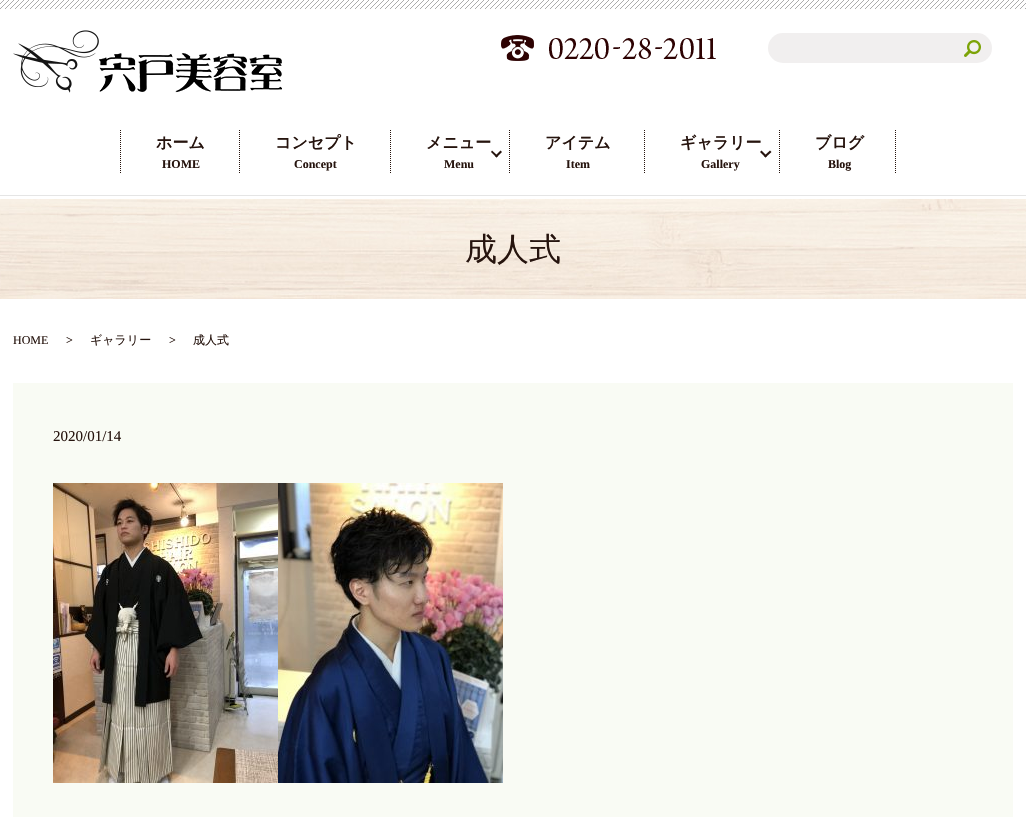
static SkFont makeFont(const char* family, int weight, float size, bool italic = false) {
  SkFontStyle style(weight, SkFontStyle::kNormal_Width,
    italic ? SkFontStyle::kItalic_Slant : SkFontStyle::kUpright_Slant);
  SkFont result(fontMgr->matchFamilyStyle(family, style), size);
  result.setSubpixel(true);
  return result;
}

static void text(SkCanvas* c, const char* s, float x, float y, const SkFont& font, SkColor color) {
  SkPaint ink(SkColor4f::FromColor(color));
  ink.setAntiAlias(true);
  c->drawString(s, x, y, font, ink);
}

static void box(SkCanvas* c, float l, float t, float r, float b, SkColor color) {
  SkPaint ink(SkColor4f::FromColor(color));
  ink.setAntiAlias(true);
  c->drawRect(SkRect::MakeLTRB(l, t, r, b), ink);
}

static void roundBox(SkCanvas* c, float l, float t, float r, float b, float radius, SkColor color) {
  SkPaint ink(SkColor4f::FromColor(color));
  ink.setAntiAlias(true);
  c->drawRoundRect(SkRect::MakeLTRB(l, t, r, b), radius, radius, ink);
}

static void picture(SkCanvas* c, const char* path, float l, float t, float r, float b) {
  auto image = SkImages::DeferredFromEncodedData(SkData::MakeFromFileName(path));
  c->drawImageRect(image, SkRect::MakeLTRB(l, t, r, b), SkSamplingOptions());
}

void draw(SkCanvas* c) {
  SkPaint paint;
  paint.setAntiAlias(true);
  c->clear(0xffffffff);
  c->save();
  c->clipRect(SkRect::MakeLTRB(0, 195, 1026, 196));
  paint.setColor(0x1a000000);
  paint.setMaskFilter(SkMaskFilter::MakeBlur(kNormal_SkBlurStyle, 0.5f));
  c->drawRect(SkRect::MakeLTRB(0, 1, 1026, 196), paint);
  paint.setMaskFilter(nullptr);
  c->restore();
  picture(c, "img_01.png", 0, 0, 1026, 9);
  picture(c, "img_02.png", 13, 30, 282, 93);
  picture(c, "img_03.png", 501, 35, 716, 61);
  roundBox(c, 768, 33, 992, 63, 15, 0xfff1efef);
  picture(c, "img_04.png", 964, 40, 981, 57);
  paint.setStyle(SkPaint::kStroke_Style);
  paint.setStrokeWidth(1);
  paint.setColor(0xff26140e);
  paint.setPathEffect(SkDashPathEffect::Make({{1, 1}}, 0));
  c->drawPath(SkPathBuilder().moveTo(120.5f, 130).lineTo(120.5f, 174).detach(), paint);
  paint.setPathEffect(nullptr);
  SkFont face1 = makeFont("WenQuanYi Zen Hei", 700, 16);
  text(c, "ホーム", 156, 148, face1, 0xff26140e);
  SkFont face2 = makeFont("Liberation Serif", 700, 12);
  text(c, "HOME", 162, 168, face2, 0xff26140e);
  paint.setPathEffect(SkDashPathEffect::Make({{1, 1}}, 0));
  c->drawPath(SkPathBuilder().moveTo(239.5f, 130).lineTo(239.5f, 174).detach(), paint);
  paint.setPathEffect(nullptr);
  text(c, "コンセプト", 275, 148, face1, 0xff26140e);
  text(c, "Concept", 294, 168, face2, 0xff26140e);
  paint.setPathEffect(SkDashPathEffect::Make({{1, 1}}, 0));
  c->drawPath(SkPathBuilder().moveTo(390.5f, 130).lineTo(390.5f, 174).detach(), paint);
  paint.setPathEffect(nullptr);
  text(c, "メニュー", 426, 148, face1, 0xff26140e);
  paint.setStyle(SkPaint::kFill_Style);
  c->drawPath(SkPathBuilder().moveTo(502, 152).lineTo(496.5f, 157.5f).lineTo(495, 156).lineTo(500.5f, 150.5f).close().detach(), paint);
  c->drawPath(SkPathBuilder().moveTo(498, 156).lineTo(496.5f, 157.5f).lineTo(491, 152).lineTo(492, 150.5f).close().detach(), paint);
  text(c, "Menu", 444, 168, face2, 0xff26140e);
  paint.setStyle(SkPaint::kStroke_Style);
  paint.setPathEffect(SkDashPathEffect::Make({{1, 1}}, 0));
  c->drawPath(SkPathBuilder().moveTo(509.5f, 130).lineTo(509.5f, 174).detach(), paint);
  paint.setPathEffect(nullptr);
  text(c, "アイテム", 545, 148, face1, 0xff26140e);
  text(c, "Item", 566, 168, face2, 0xff26140e);
  paint.setPathEffect(SkDashPathEffect::Make({{1, 1}}, 0));
  c->drawPath(SkPathBuilder().moveTo(644.5f, 130).lineTo(644.5f, 174).detach(), paint);
  paint.setPathEffect(nullptr);
  text(c, "ギャラリー", 680, 148, face1, 0xff26140e);
  paint.setStyle(SkPaint::kFill_Style);
  c->drawPath(SkPathBuilder().moveTo(771.5f, 152).lineTo(765.5f, 157.5f).lineTo(764, 156).lineTo(770, 150.5f).close().detach(), paint);
  c->drawPath(SkPathBuilder().moveTo(767, 156).lineTo(765.5f, 157.5f).lineTo(760, 152).lineTo(761.5f, 150.5f).close().detach(), paint);
  text(c, "Gallery", 701, 168, face2, 0xff26140e);
  paint.setStyle(SkPaint::kStroke_Style);
  paint.setPathEffect(SkDashPathEffect::Make({{1, 1}}, 0));
  c->drawPath(SkPathBuilder().moveTo(779.5f, 130).lineTo(779.5f, 174).detach(), paint);
  paint.setPathEffect(nullptr);
  text(c, "ブログ", 815, 148, face1, 0xff26140e);
  paint.setPathEffect(SkDashPathEffect::Make({{1, 1}}, 0));
  c->drawPath(SkPathBuilder().moveTo(895.5f, 130).lineTo(895.5f, 174).detach(), paint);
  paint.setPathEffect(nullptr);
  text(c, "Blog", 828, 168, face2, 0xff26140e);
  picture(c, "img_05.png", 0, 199, 1026, 299);
  SkFont face3 = makeFont("WenQuanYi Zen Hei", 500, 32);
  text(c, "成人式", 465, 260, face3, 0xff26140e);
  SkFont face4 = makeFont("Liberation Serif", 400, 12);
  text(c, "HOME", 13, 344, face4, 0xff26140e);
  text(c, ">", 66, 344, face4, 0xff26140e);
  SkFont face5 = makeFont("WenQuanYi Zen Hei", 500, 12);
  text(c, "ギャラリー", 90, 344, face5, 0xff26140e);
  text(c, ">", 169, 344, face4, 0xff26140e);
  text(c, "成人式", 193, 344, face5, 0xff26140e);
  box(c, 13, 383, 1013, 817, 0xfff9fbf4);
  SkFont face6 = makeFont("Liberation Serif", 400, 15);
  text(c, "2020/01/14", 53, 441, face6, 0xff26140e);
  picture(c, "img_06.png", 53, 483, 278, 783);
  picture(c, "img_07.png", 278, 483, 503, 783);
}
